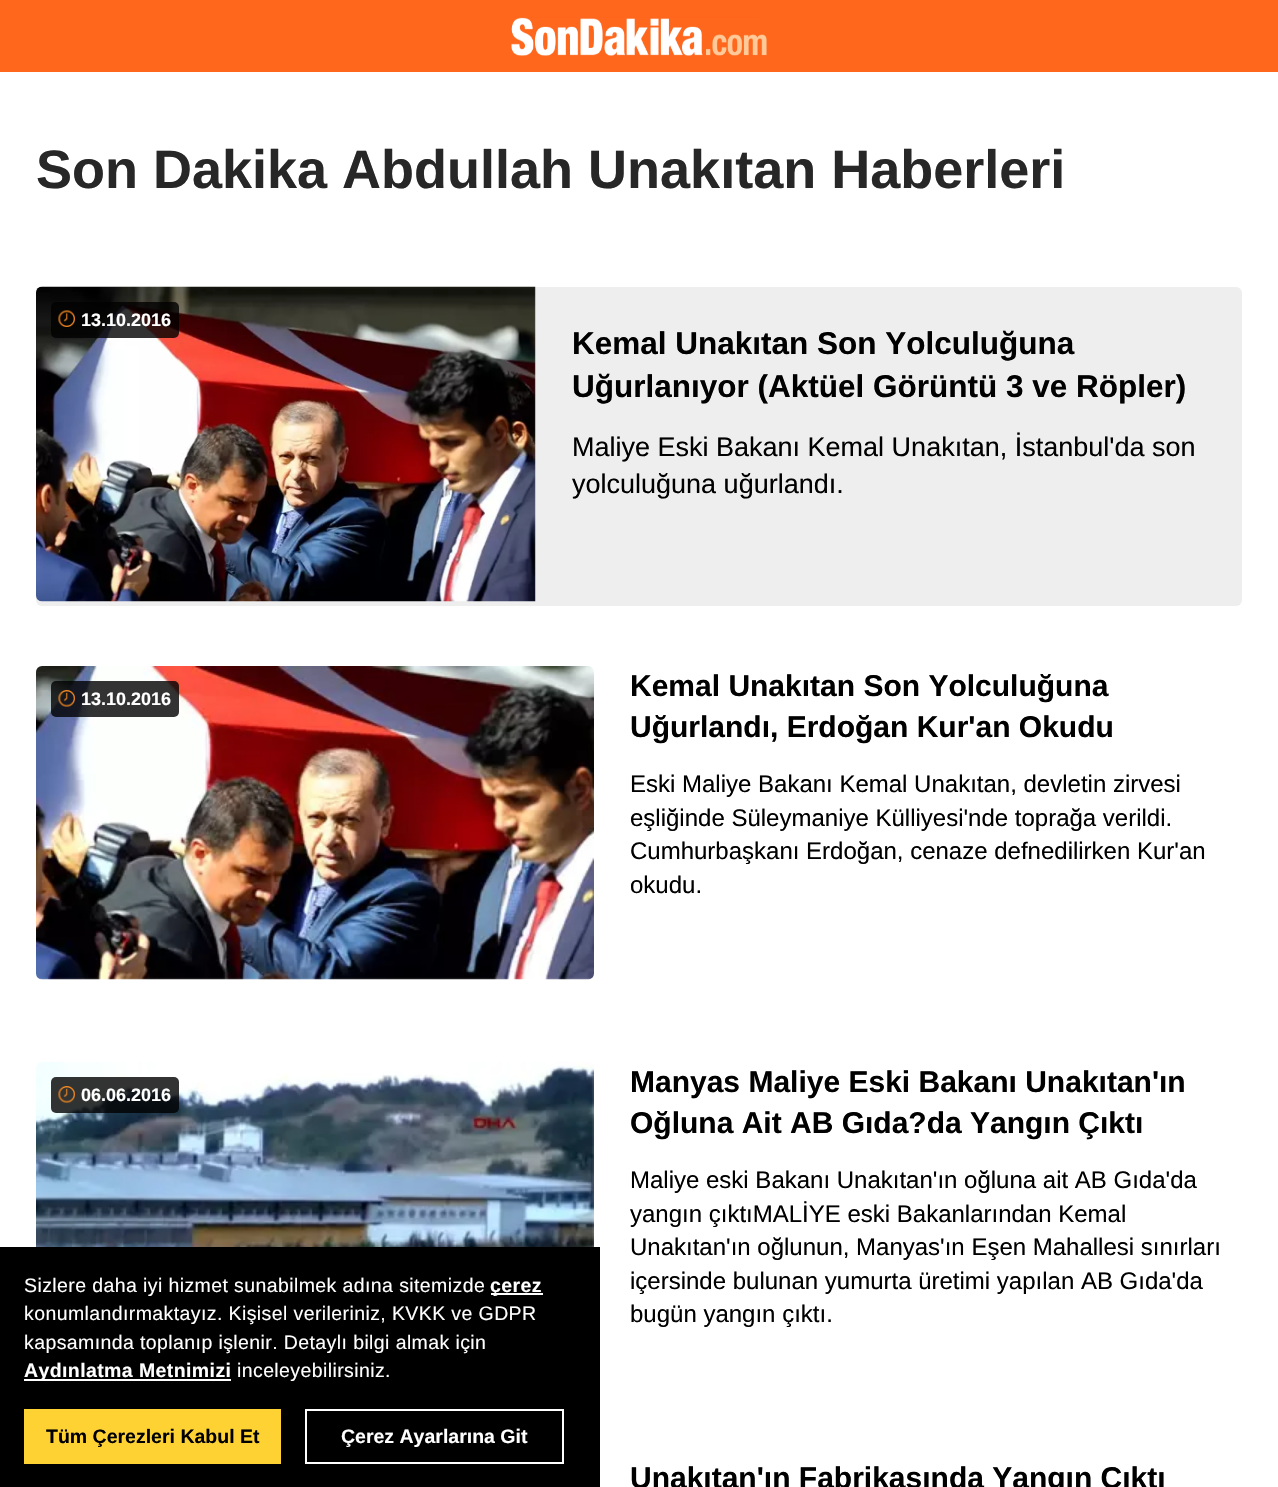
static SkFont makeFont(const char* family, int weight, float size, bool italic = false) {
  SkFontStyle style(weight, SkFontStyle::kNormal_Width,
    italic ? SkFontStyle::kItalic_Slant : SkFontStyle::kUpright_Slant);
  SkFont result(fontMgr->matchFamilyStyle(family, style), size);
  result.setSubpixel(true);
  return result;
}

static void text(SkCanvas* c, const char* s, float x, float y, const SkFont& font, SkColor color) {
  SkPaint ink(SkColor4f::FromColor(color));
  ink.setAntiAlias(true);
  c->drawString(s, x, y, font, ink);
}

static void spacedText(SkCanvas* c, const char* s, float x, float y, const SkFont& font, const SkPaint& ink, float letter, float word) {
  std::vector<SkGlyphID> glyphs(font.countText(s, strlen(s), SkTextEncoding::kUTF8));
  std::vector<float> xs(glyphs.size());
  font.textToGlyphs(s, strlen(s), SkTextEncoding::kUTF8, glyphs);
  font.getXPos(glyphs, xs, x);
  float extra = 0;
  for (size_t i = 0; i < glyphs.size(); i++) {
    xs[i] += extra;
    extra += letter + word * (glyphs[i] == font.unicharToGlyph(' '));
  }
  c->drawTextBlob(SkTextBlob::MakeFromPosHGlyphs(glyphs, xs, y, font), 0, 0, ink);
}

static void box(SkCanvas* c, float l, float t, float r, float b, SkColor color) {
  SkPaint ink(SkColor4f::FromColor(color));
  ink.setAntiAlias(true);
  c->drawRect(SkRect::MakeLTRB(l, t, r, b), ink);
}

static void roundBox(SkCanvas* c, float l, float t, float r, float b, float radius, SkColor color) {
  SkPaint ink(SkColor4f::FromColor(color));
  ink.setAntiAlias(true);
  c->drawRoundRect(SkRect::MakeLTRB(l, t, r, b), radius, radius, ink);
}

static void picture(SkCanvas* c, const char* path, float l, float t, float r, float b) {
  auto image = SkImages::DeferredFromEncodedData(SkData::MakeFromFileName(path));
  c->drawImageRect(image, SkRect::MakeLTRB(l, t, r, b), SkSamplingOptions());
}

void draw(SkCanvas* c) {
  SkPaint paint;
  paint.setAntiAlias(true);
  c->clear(0xffffffff);
  box(c, 0, 0, 1278, 72, 0xffff671d);
  picture(c, "img_01.png", 511, 17, 767, 56);
  SkFont face1 = makeFont("Liberation Sans", 700, 54);
  text(c, "Son Dakika Abdullah Unakıtan Haberleri", 36, 188, face1, 0xff272727);
  roundBox(c, 36, 287, 1242, 606, 6, 0xffeeeeee);
  picture(c, "img_02.png", 36, 286, 536, 602);
  roundBox(c, 51, 302, 179, 338, 5, 0xcc000000);
  picture(c, "img_03.png", 58, 310, 75, 327);
  SkFont face2 = makeFont("Liberation Sans", 700, 18);
  text(c, "13.10.2016", 81, 326, face2, 0xffffffff);
  SkFont face3 = makeFont("Liberation Sans", 700, 31.5f);
  text(c, "Kemal Unakıtan Son Yolculuğuna", 572, 354, face3, 0xff000000);
  text(c, "Uğurlanıyor (Aktüel Görüntü 3 ve Röpler)", 572, 397, face3, 0xff000000);
  SkFont face4 = makeFont("Liberation Sans", 400, 27);
  text(c, "Maliye Eski Bakanı Kemal Unakıtan, İstanbul'da son", 572, 456, face4, 0xff000000);
  text(c, "yolculuğuna uğurlandı.", 572, 493, face4, 0xff000000);
  picture(c, "img_04.png", 36, 666, 594, 980);
  roundBox(c, 51, 681, 179, 717, 5, 0xcc000000);
  picture(c, "img_05.png", 58, 690, 75, 707);
  text(c, "13.10.2016", 81, 705, face2, 0xffffffff);
  SkFont face5 = makeFont("Liberation Sans", 700, 30);
  text(c, "Kemal Unakıtan Son Yolculuğuna", 630, 696, face5, 0xff000000);
  text(c, "Uğurlandı, Erdoğan Kur'an Okudu", 630, 737, face5, 0xff000000);
  SkFont face6 = makeFont("Liberation Sans", 400, 24);
  text(c, "Eski Maliye Bakanı Kemal Unakıtan, devletin zirvesi", 630, 792, face6, 0xff000000);
  text(c, "eşliğinde Süleymaniye Külliyesi'nde toprağa verildi.", 630, 826, face6, 0xff000000);
  text(c, "Cumhurbaşkanı Erdoğan, cenaze defnedilirken Kur'an", 630, 859, face6, 0xff000000);
  text(c, "okudu.", 630, 893, face6, 0xff000000);
  picture(c, "img_06.png", 36, 1062, 594, 1247);
  roundBox(c, 51, 1077, 179, 1113, 5, 0xcc000000);
  picture(c, "img_07.png", 58, 1086, 75, 1103);
  text(c, "06.06.2016", 81, 1101, face2, 0xffffffff);
  text(c, "Manyas Maliye Eski Bakanı Unakıtan'ın", 630, 1092, face5, 0xff000000);
  text(c, "Oğluna Ait AB Gıda?da Yangın Çıktı", 630, 1133, face5, 0xff000000);
  text(c, "Maliye eski Bakanı Unakıtan'ın oğluna ait AB Gıda'da", 630, 1188, face6, 0xff000000);
  text(c, "yangın çıktıMALİYE eski Bakanlarından Kemal", 630, 1222, face6, 0xff000000);
  text(c, "Unakıtan'ın oğlunun, Manyas'ın Eşen Mahallesi sınırları", 630, 1255, face6, 0xff000000);
  text(c, "içersinde bulunan yumurta üretimi yapılan AB Gıda'da", 630, 1289, face6, 0xff000000);
  text(c, "bugün yangın çıktı.", 630, 1322, face6, 0xff000000);
  text(c, "Unakıtan'ın Fabrikasında Yangın Çıktı", 630, 1488, face5, 0xff000000);
  box(c, 0, 1247, 600, 1487, 0xff000000);
  SkFont face7 = makeFont("Liberation Sans", 400, 19.5f);
  paint.setColor(0xffffffff);
  spacedText(c, "Sizlere daha iyi hizmet sunabilmek adına sitemizde", 24, 1292, face7, paint, 0.4f, 0);
  box(c, 491, 1293, 543, 1295, 0xffffffff);
  SkFont face8 = makeFont("Liberation Sans", 700, 19.5f);
  spacedText(c, "çerez", 490, 1292, face8, paint, 0.4f, 0);
  spacedText(c, "konumlandırmaktayız. Kişisel verileriniz, KVKK ve GDPR", 24, 1320, face7, paint, 0.4f, 0);
  spacedText(c, "kapsamında toplanıp işlenir. Detaylı bilgi almak için", 24, 1349, face7, paint, 0.4f, 0);
  box(c, 24, 1379, 231, 1381, 0xffffffff);
  spacedText(c, "Aydınlatma Metnimizi", 24, 1377, face8, paint, 0.4f, 0);
  spacedText(c, "inceleyebilirsiniz.", 237, 1377, face7, paint, 0.4f, 0);
  box(c, 24, 1409, 281, 1464, 0xffffd234);
  text(c, "Tüm Çerezleri Kabul Et", 46, 1443, face8, 0xff000000);
  paint.setStyle(SkPaint::kStroke_Style);
  paint.setStrokeWidth(2);
  c->drawRect(SkRect::MakeLTRB(306, 1410, 563, 1463), paint);
  text(c, "Çerez Ayarlarına Git", 341, 1443, face8, 0xffffffff);
}
